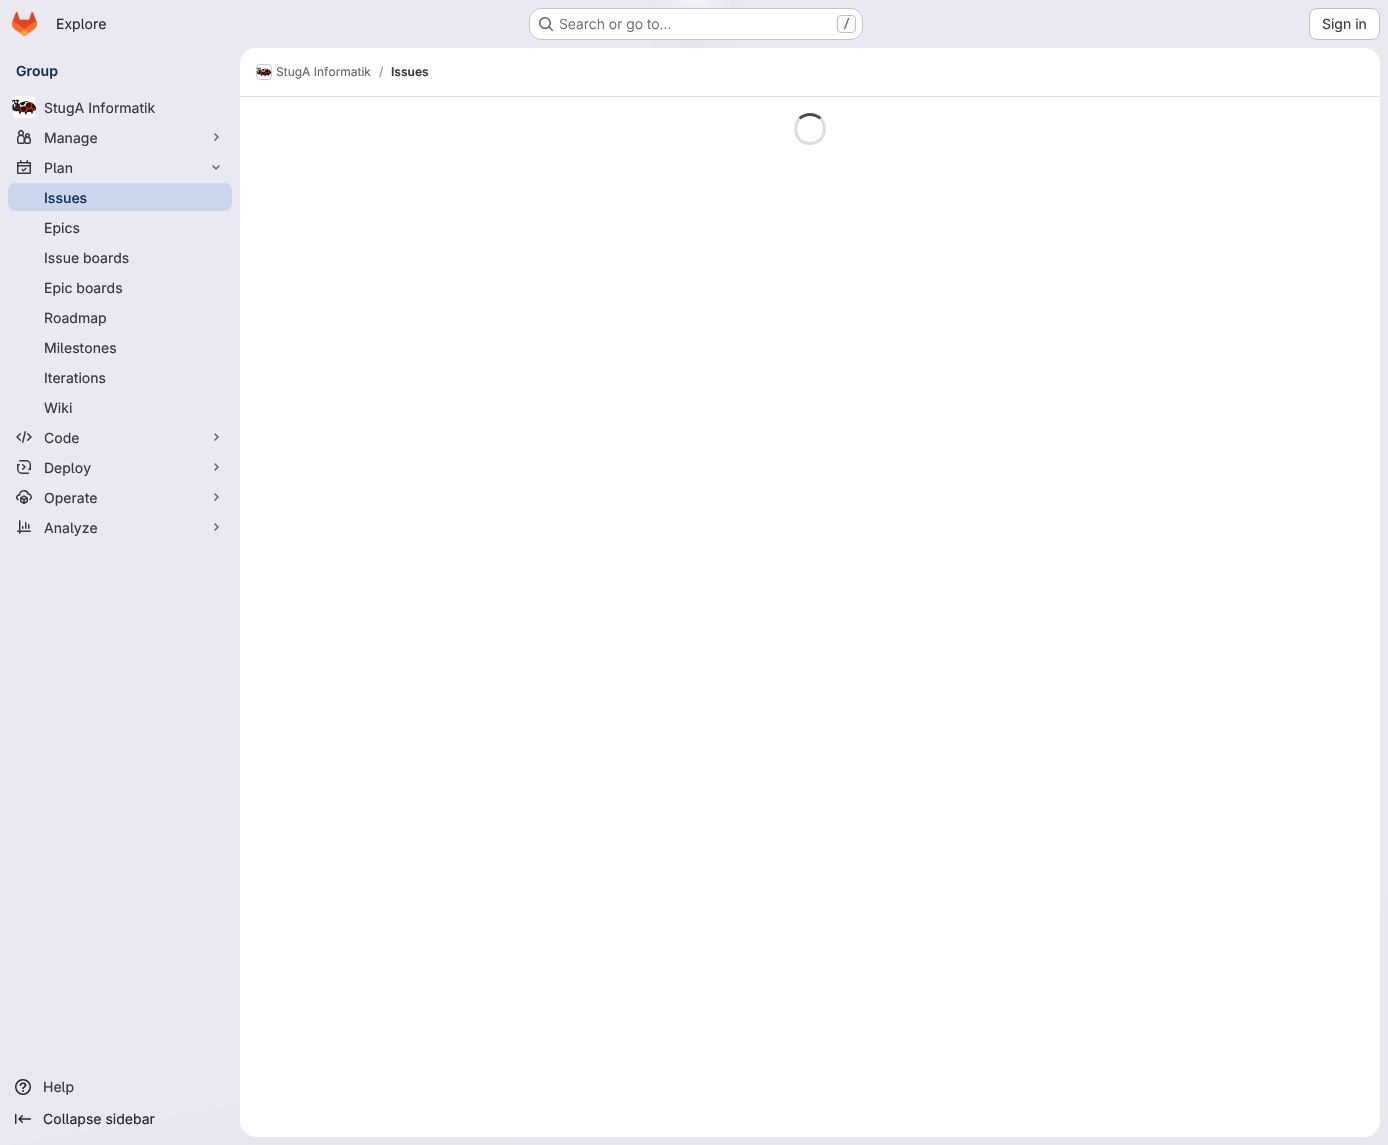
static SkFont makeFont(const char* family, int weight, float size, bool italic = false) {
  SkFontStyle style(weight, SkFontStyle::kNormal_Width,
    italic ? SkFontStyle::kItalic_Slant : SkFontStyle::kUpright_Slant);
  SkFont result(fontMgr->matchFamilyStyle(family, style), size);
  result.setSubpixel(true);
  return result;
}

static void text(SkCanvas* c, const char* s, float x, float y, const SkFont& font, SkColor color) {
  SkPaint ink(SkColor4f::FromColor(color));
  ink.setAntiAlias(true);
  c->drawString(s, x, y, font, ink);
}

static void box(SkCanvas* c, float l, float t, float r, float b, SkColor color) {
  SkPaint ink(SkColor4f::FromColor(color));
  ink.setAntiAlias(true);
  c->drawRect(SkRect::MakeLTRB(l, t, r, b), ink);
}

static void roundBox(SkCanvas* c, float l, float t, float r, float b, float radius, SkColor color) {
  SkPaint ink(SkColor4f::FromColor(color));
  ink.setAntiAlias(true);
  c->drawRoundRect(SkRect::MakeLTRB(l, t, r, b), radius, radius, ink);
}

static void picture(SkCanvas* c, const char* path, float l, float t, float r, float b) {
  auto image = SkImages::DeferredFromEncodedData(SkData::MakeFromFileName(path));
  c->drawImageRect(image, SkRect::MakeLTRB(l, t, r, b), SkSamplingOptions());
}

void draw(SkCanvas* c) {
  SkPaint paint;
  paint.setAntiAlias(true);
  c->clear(0xffffffff);
  {
    const SkColor colors[] = {0xffe8e6f0, 0xffeae9f2};
    const float stops[] = {0, 0.7f};
    const SkPoint ends[] = {{813, 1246}, {575, -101}};
    paint.setShader(SkGradientShader::MakeLinear(ends, colors, stops, 2, SkTileMode::kClamp));
    paint.setAlpha(255);
  }
  c->drawRect(SkRect::MakeLTRB(0, 0, 1388, 1145), paint);
  {
    const SkColor colors[] = {0xffe4e2ed, 0x00e4e2ed};
    const float stops[] = {0, 0.1f};
    SkMatrix m = SkMatrix::Translate(694, 0).preScale(694, 1145);
    paint.setShader(SkGradientShader::MakeRadial({0, 0}, 1, colors, stops, 2, SkTileMode::kClamp, 0, &m));
    paint.setAlpha(255);
  }
  c->drawRect(SkRect::MakeLTRB(644, 0, 744, 48), paint);
  {
    const SkColor colors[] = {0xffe4e2ec, 0x00e4e2ec};
    const float stops[] = {0, 0.07f};
    SkMatrix m = SkMatrix::Translate(694, 0).preScale(694, 1145);
    paint.setShader(SkGradientShader::MakeRadial({0, 0}, 1, colors, stops, 2, SkTileMode::kClamp, 0, &m));
    paint.setAlpha(255);
  }
  c->drawRect(SkRect::MakeLTRB(679, 15, 709, 34), paint);
  {
    const SkColor colors[] = {0x99ffffff, 0x00ffffff};
    const float stops[] = {0, 0.03f};
    paint.setShader(SkGradientShader::MakeRadial({694, 0}, 1339, colors, stops, 2, SkTileMode::kClamp));
    paint.setAlpha(255);
  }
  c->drawRect(SkRect::MakeLTRB(655, 0, 733, 8), paint);
  picture(c, "img_01.png", 12, 12, 37, 36);
  SkFont face1 = makeFont("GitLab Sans", 400, 14);
  text(c, "Explore", 56, 29, face1, 0xff28272d);
  roundBox(c, 529, 8, 863, 40, 12, 0xffffffff);
  paint.setStyle(SkPaint::kStroke_Style);
  paint.setStrokeWidth(1);
  paint.setShader(nullptr);
  paint.setColor(0x3d050506);
  c->drawRoundRect(SkRect::MakeLTRB(529.5f, 8.5f, 862.5f, 39.5f), 11.5f, 11.5f, paint);
  picture(c, "img_02.png", 539, 17, 553, 31);
  SkFont face2 = makeFont("GitLab Sans", 300, 14);
  text(c, "Search or go to…", 559, 29, face2, 0xff626168);
  paint.setStyle(SkPaint::kFill_Style);
  paint.setColor(0xfffbfafd);
  c->drawRoundRect(SkRect::MakeLTRB(837.5f, 15.5f, 855.5f, 32.5f), 3.5f, 3.5f, paint);
  paint.setStyle(SkPaint::kStroke_Style);
  paint.setColor(0xffbfbfc3);
  c->drawRoundRect(SkRect::MakeLTRB(837.5f, 15.5f, 855.5f, 32.5f), 3.5f, 3.5f, paint);
  SkFont face3 = makeFont("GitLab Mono", 500, 12);
  text(c, "/", 843, 28, face3, 0xff626168);
  paint.setStyle(SkPaint::kFill_Style);
  paint.setColor(0xffffffff);
  c->drawRoundRect(SkRect::MakeLTRB(1309.5f, 8.5f, 1379.5f, 39.5f), 7.5f, 7.5f, paint);
  paint.setStyle(SkPaint::kStroke_Style);
  paint.setColor(0xffbfbfc3);
  c->drawRoundRect(SkRect::MakeLTRB(1309.5f, 8.5f, 1379.5f, 39.5f), 7.5f, 7.5f, paint);
  text(c, "Sign in", 1322, 29, face1, 0xff3a383f);
  SkFont face4 = makeFont("GitLab Sans", 600, 14);
  text(c, "Group", 16, 76, face4, 0xff18334e);
  roundBox(c, 12, 95, 36, 119, 4, 0xffffffff);
  picture(c, "img_03.png", 12, 99, 36, 115);
  paint.setColor(0x14050506);
  c->drawRoundRect(SkRect::MakeLTRB(12.5f, 95.5f, 35.5f, 118.5f), 3.5f, 3.5f, paint);
  SkFont face5 = makeFont("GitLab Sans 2", 400, 14);
  text(c, "StugA Informatik", 44, 113, face5, 0xff3a383f);
  picture(c, "img_04.png", 17, 129, 31, 144);
  text(c, "Manage", 44, 143, face5, 0xff3a383f);
  paint.setStrokeWidth(1.5f);
  paint.setStrokeCap(SkPaint::kRound_Cap);
  paint.setStrokeJoin(SkPaint::kRound_Join);
  paint.setColor(0xff626168);
  c->drawPath(SkPathBuilder().moveTo(215, 134).lineTo(218, 137).lineTo(215, 140).detach(), paint);
  picture(c, "img_05.png", 17, 160, 31, 174);
  text(c, "Plan", 44, 173, face5, 0xff3a383f);
  c->drawPath(SkPathBuilder().moveTo(219, 166).lineTo(216, 169).lineTo(213, 166).detach(), paint);
  roundBox(c, 8, 183, 232, 211, 8, 0xffcad6eb);
  SkFont face6 = makeFont("GitLab Sans", 500, 14);
  text(c, "Issues", 44, 203, face6, 0xff18334e);
  text(c, "Epics", 44, 233, face5, 0xff3a383f);
  text(c, "Issue boards", 44, 263, face5, 0xff3a383f);
  text(c, "Epic boards", 44, 293, face5, 0xff3a383f);
  text(c, "Roadmap", 44, 323, face5, 0xff3a383f);
  text(c, "Milestones", 44, 353, face5, 0xff3a383f);
  text(c, "Iterations", 44, 383, face5, 0xff3a383f);
  text(c, "Wiki", 44, 413, face5, 0xff3a383f);
  picture(c, "img_06.png", 16, 431, 32, 443);
  text(c, "Code", 44, 443, face5, 0xff3a383f);
  c->drawPath(SkPathBuilder().moveTo(215, 434).lineTo(218, 437).lineTo(215, 440).detach(), paint);
  picture(c, "img_07.png", 17, 460, 31, 474);
  text(c, "Deploy", 44, 473, face5, 0xff3a383f);
  c->drawPath(SkPathBuilder().moveTo(215, 464).lineTo(218, 467).lineTo(215, 470).detach(), paint);
  picture(c, "img_08.png", 16, 490, 32, 505);
  text(c, "Operate", 44, 503, face5, 0xff3a383f);
  c->drawPath(SkPathBuilder().moveTo(215, 494).lineTo(218, 497).lineTo(215, 500).detach(), paint);
  picture(c, "img_09.png", 17, 520, 31, 534);
  text(c, "Analyze", 44, 533, face5, 0xff3a383f);
  c->drawPath(SkPathBuilder().moveTo(215, 524).lineTo(218, 527).lineTo(215, 530).detach(), paint);
  picture(c, "img_10.png", 15, 1079, 31, 1095);
  text(c, "Help", 43, 1092, face5, 0xff3a383f);
  picture(c, "img_11.png", 15, 1114, 31, 1124);
  text(c, "Collapse sidebar", 43, 1124, face5, 0xff28272d);
  roundBox(c, 240, 48, 1380, 1137, 16, 0xffffffff);
  paint.setStyle(SkPaint::kFill_Style);
  paint.setColor(0xffffffff);
  c->drawPath(SkPathBuilder().moveTo(256, 48).lineTo(1364, 48).cubicTo(1373, 48, 1380, 55, 1380, 64).lineTo(1380, 97).lineTo(240, 97).lineTo(240, 64).cubicTo(240, 55, 247, 48, 256, 48).close().detach(), paint);
  box(c, 240, 96, 1380, 97, 0xffe1dfec);
  paint.setStyle(SkPaint::kStroke_Style);
  paint.setStrokeWidth(1);
  paint.setStrokeCap(SkPaint::kButt_Cap);
  paint.setStrokeJoin(SkPaint::kMiter_Join);
  paint.setColor(0xffdcdcde);
  c->drawRoundRect(SkRect::MakeLTRB(256.5f, 64.5f, 271.5f, 79.5f), 3.5f, 3.5f, paint);
  picture(c, "img_12.png", 257, 67, 271, 77);
  paint.setColor(0x14050506);
  c->drawRoundRect(SkRect::MakeLTRB(256.5f, 64.5f, 271.5f, 79.5f), 3.5f, 3.5f, paint);
  SkFont face7 = makeFont("GitLab Sans", 400, 12);
  text(c, "StugA Informatik", 276, 76, face7, 0xff626168);
  text(c, "/", 379, 76, face7, 0xff89888d);
  SkFont face8 = makeFont("GitLab Sans", 600, 12);
  text(c, "Issues", 391, 76, face8, 0xff3a383f);
  paint.setStrokeWidth(3);
  paint.setColor(0xff4c4b51);
  c->drawPath(SkPathBuilder().moveTo(799.5f, 118.5f).cubicTo(805.5f, 113, 814.5f, 113, 820.5f, 118.5f).detach(), paint);
  paint.setColor(0xffdcdcde);
  c->drawPath(SkPathBuilder().moveTo(820.5f, 118.5f).cubicTo(823, 121.5f, 824.5f, 125, 824.5f, 129).cubicTo(824.5f, 146.5f, 799, 149, 796, 132).cubicTo(795, 127, 796.5f, 122, 799.5f, 118.5f).detach(), paint);
}
